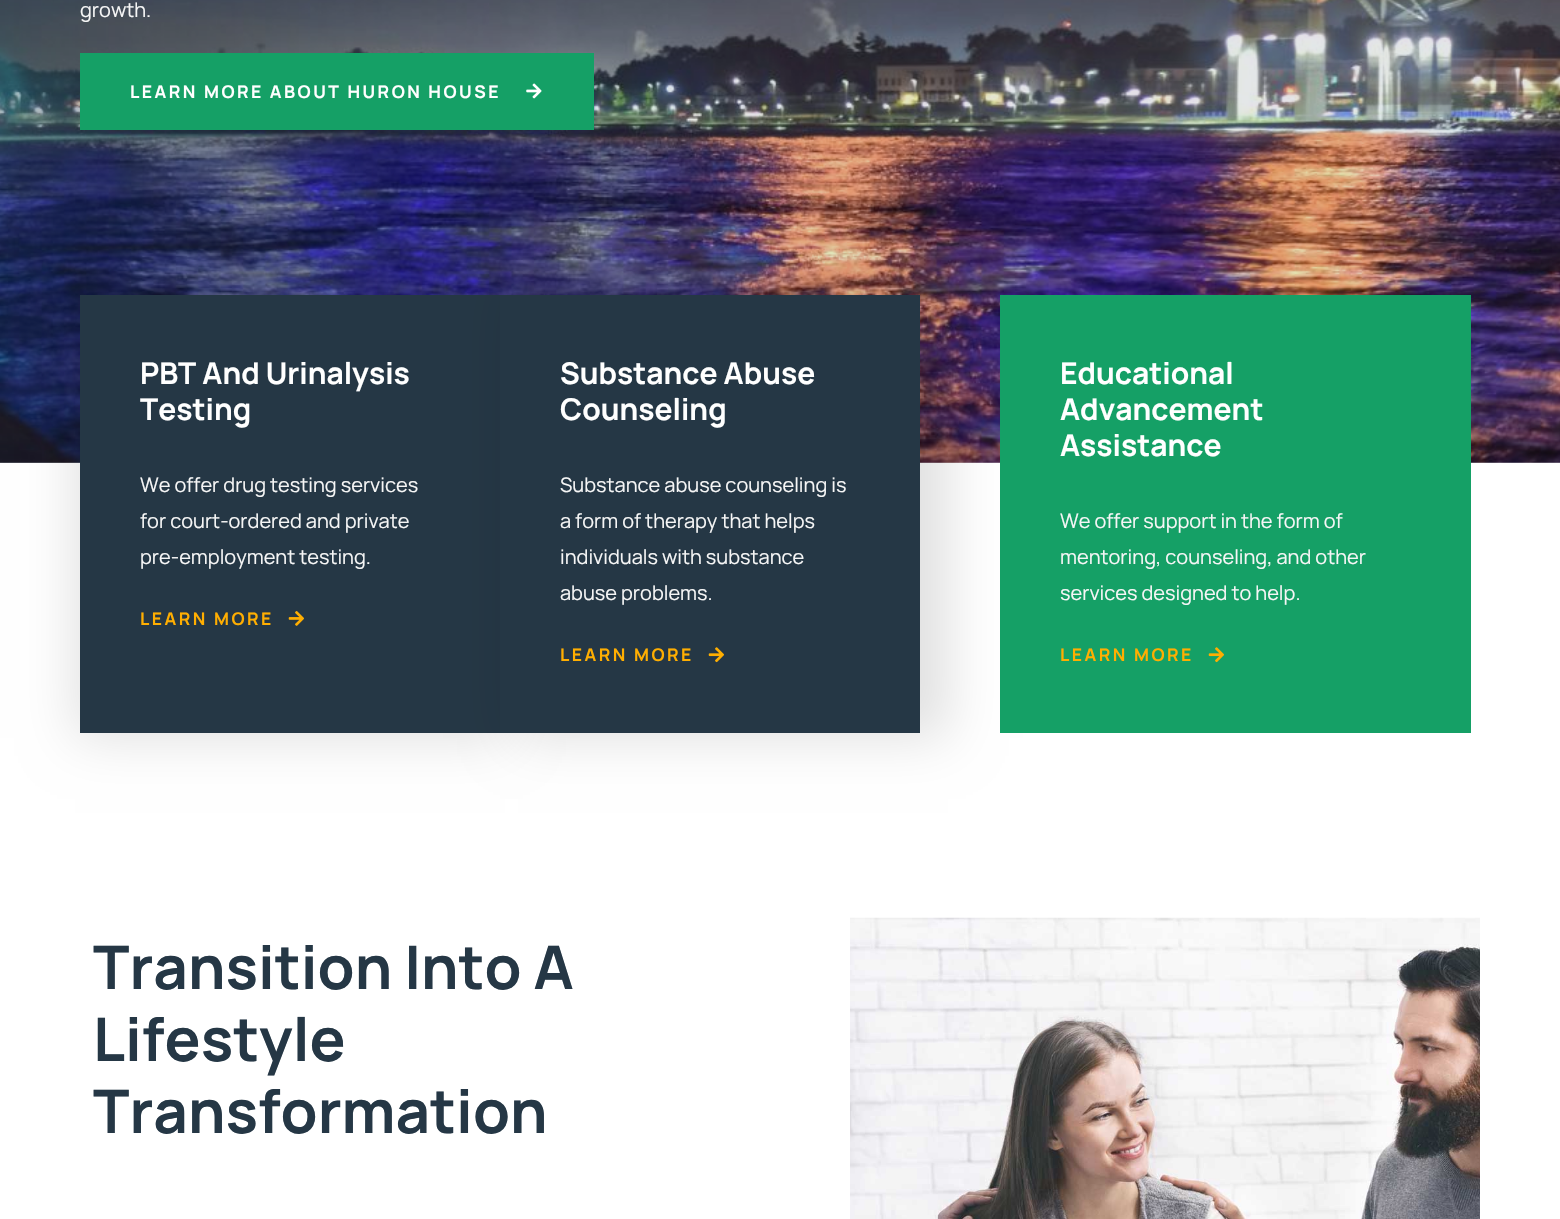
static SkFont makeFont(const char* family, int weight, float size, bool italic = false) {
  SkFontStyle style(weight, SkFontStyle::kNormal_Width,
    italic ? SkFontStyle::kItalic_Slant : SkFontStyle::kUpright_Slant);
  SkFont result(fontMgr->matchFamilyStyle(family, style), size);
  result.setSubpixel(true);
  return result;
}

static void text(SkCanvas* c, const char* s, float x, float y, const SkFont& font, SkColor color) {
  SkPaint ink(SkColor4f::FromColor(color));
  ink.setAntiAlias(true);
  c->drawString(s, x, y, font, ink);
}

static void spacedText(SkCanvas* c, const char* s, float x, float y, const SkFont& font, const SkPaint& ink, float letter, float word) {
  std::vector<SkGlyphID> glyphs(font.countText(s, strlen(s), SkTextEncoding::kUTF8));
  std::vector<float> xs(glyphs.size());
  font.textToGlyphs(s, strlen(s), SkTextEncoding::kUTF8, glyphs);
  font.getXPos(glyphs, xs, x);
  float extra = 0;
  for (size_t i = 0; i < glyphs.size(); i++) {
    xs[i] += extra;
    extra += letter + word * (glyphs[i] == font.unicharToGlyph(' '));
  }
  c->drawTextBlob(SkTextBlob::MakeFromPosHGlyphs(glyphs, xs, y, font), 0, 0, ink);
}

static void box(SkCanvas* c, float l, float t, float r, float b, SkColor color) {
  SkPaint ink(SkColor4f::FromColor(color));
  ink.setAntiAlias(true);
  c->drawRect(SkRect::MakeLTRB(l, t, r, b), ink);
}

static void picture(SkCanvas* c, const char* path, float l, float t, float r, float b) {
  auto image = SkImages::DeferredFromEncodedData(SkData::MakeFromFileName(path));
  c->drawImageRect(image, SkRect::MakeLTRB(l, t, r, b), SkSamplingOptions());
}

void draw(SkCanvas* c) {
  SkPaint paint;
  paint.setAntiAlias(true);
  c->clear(0xffffffff);
  picture(c, "img_01.png", 0, 0, 1560, 463);
  {
    const SkColor colors[] = {0x5c253745, 0x1f253745};
    const float stops[] = {0, 0.36f};
    const SkPoint ends[] = {{0, -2.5f}, {1560, -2.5f}};
    paint.setShader(SkGradientShader::MakeLinear(ends, colors, stops, 2, SkTileMode::kClamp));
    paint.setAlpha(255);
  }
  c->drawRect(SkRect::MakeLTRB(0, 0, 1560, 463), paint);
  SkFont face1 = makeFont("Manrope", 400, 20);
  text(c, "growth.", 80, 17, face1, 0xfff6f6f6);
  box(c, 80, 53, 594, 130, 0xff15a066);
  SkFont face2 = makeFont("Manrope", 700, 17.5f);
  paint.setShader(nullptr);
  paint.setColor(0xffffffff);
  spacedText(c, "LEARN MORE ABOUT HURON HOUSE", 130, 98, face2, paint, 2.5f, 0);
  picture(c, "img_02.png", 526, 83, 542, 99);
  paint.setColor(0x1f000000);
  paint.setMaskFilter(SkMaskFilter::MakeBlur(kNormal_SkBlurStyle, 25));
  c->drawRect(SkRect::MakeLTRB(75, 290, 505, 738), paint);
  paint.setMaskFilter(nullptr);
  box(c, 80, 295, 500, 733, 0xff253745);
  SkFont face3 = makeFont("Manrope", 700, 30);
  text(c, "PBT And Urinalysis", 140, 384, face3, 0xffffffff);
  text(c, "Testing", 140, 420, face3, 0xffffffff);
  text(c, "We offer drug testing services", 140, 492, face1, 0xfff6f6f6);
  text(c, "for court-ordered and private", 140, 528, face1, 0xfff6f6f6);
  text(c, "pre-employment testing.", 140, 564, face1, 0xfff6f6f6);
  paint.setColor(0xffffae01);
  spacedText(c, "LEARN MORE", 140, 625, face2, paint, 2.5f, 0);
  picture(c, "img_03.png", 288, 611, 304, 626);
  paint.setColor(0x1f000000);
  paint.setMaskFilter(SkMaskFilter::MakeBlur(kNormal_SkBlurStyle, 25));
  c->drawRect(SkRect::MakeLTRB(518, 290, 948, 738), paint);
  paint.setMaskFilter(nullptr);
  box(c, 500, 295, 920, 733, 0xff253745);
  text(c, "Substance Abuse", 560, 384, face3, 0xffffffff);
  text(c, "Counseling", 560, 420, face3, 0xffffffff);
  text(c, "Substance abuse counseling is", 560, 492, face1, 0xfff6f6f6);
  text(c, "a form of therapy that helps", 560, 528, face1, 0xfff6f6f6);
  text(c, "individuals with substance", 560, 564, face1, 0xfff6f6f6);
  text(c, "abuse problems.", 560, 600, face1, 0xfff6f6f6);
  paint.setColor(0xffffae01);
  spacedText(c, "LEARN MORE", 560, 661, face2, paint, 2.5f, 0);
  picture(c, "img_04.png", 708, 647, 724, 663);
  box(c, 1000, 295, 1471, 733, 0xff15a066);
  text(c, "Educational", 1060, 384, face3, 0xffffffff);
  text(c, "Advancement", 1060, 420, face3, 0xffffffff);
  text(c, "Assistance", 1060, 456, face3, 0xffffffff);
  text(c, "We offer support in the form of", 1060, 528, face1, 0xfff6f6f6);
  text(c, "mentoring, counseling, and other", 1060, 564, face1, 0xfff6f6f6);
  text(c, "services designed to help.", 1060, 600, face1, 0xfff6f6f6);
  spacedText(c, "LEARN MORE", 1060, 661, face2, paint, 2.5f, 0);
  picture(c, "img_05.png", 1208, 647, 1224, 663);
  SkFont face4 = makeFont("Manrope", 700, 60);
  text(c, "Transition Into A", 93, 989, face4, 0xff253745);
  text(c, "Lifestyle", 93, 1061, face4, 0xff253745);
  text(c, "Transformation", 93, 1133, face4, 0xff253745);
  picture(c, "img_06.png", 850, 917, 1480, 1219);
}
